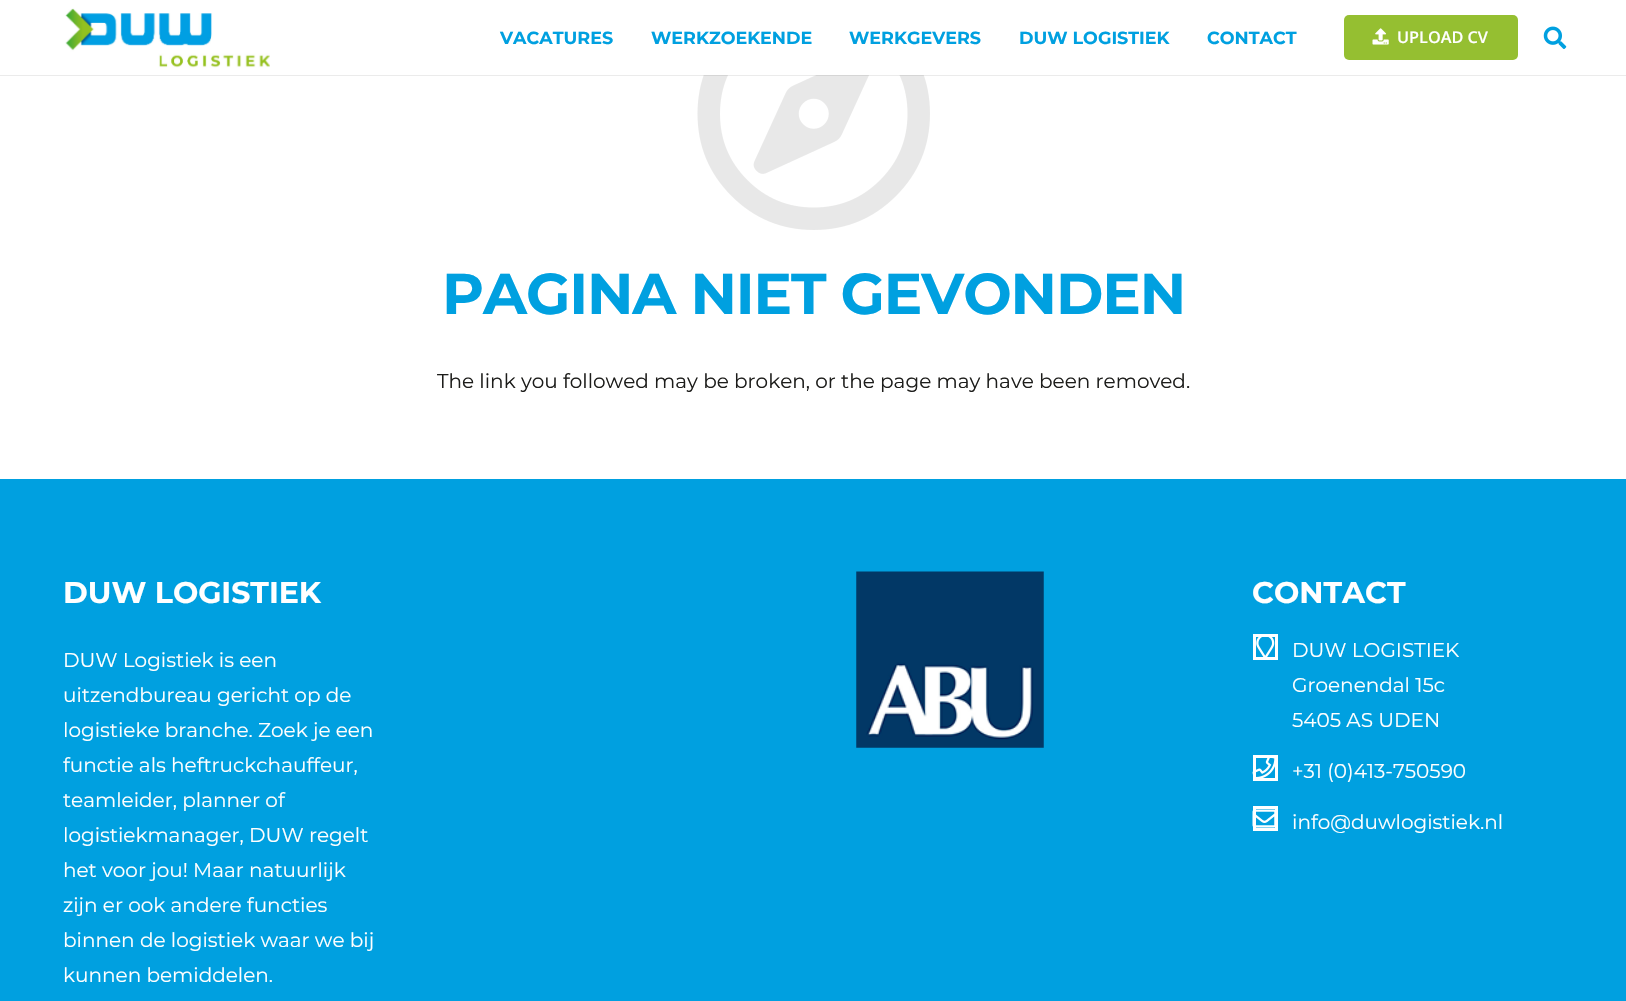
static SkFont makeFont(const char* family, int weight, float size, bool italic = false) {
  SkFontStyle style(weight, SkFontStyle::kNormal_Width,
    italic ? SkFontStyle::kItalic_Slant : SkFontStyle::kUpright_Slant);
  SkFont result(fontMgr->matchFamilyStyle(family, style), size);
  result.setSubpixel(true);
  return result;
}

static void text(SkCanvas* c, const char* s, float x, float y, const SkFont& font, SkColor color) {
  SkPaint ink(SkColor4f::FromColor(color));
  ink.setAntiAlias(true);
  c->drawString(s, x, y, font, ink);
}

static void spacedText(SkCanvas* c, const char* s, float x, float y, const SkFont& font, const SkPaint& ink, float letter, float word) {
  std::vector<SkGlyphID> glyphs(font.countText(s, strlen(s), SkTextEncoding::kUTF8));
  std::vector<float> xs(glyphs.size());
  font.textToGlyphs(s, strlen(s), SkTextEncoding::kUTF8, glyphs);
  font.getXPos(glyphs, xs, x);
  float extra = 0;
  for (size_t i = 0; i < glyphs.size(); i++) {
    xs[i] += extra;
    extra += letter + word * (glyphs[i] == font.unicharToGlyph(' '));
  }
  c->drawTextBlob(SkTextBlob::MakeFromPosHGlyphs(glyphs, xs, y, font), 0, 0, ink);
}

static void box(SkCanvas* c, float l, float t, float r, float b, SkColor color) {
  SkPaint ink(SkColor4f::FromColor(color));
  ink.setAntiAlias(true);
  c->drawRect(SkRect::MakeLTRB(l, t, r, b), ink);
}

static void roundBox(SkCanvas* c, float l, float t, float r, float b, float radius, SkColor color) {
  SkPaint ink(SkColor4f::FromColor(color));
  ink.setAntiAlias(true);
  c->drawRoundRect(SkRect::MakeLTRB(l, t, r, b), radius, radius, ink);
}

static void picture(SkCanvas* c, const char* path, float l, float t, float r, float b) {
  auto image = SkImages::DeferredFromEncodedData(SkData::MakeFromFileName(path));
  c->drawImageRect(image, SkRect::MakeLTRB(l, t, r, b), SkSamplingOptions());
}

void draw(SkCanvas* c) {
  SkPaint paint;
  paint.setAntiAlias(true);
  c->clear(0xffffffff);
  picture(c, "img_04.png", 697, 75, 930, 230);
  box(c, 0, 75, 1626, 76, 0x14000000);
  picture(c, "img_01.png", 65, 8, 270, 68);
  SkFont face1 = makeFont("Montserrat", 700, 17.5f);
  text(c, "VACATURES", 500, 44, face1, 0xff00a0e0);
  text(c, "WERKZOEKENDE", 651, 44, face1, 0xff00a0e0);
  text(c, "WERKGEVERS", 849, 44, face1, 0xff00a0e0);
  text(c, "DUW LOGISTIEK", 1019, 44, face1, 0xff00a0e0);
  text(c, "CONTACT", 1207, 44, face1, 0xff00a0e0);
  roundBox(c, 1344, 15, 1518, 60, 5, 0xff95bf31);
  picture(c, "img_02.png", 1372, 28, 1389, 45);
  SkFont face2 = makeFont("Open Sans", 600, 16.25f);
  text(c, "UPLOAD CV", 1397, 43, face2, 0xffffffff);
  picture(c, "img_03.png", 1543, 26, 1567, 49);
  SkFont face3 = makeFont("Montserrat", 700, 57.5f);
  paint.setColor(0xff00a0e0);
  spacedText(c, "PAGINA NIET GEVONDEN", 442, 314, face3, paint, -1.1f, 0);
  SkFont face4 = makeFont("Montserrat", 400, 20);
  text(c, "The link you followed may be broken, or the page may have been removed.", 437, 388, face4, 0xff1d1d1b);
  box(c, 0, 479, 1626, 1001, 0xff00a0e0);
  SkFont face5 = makeFont("Montserrat", 700, 30);
  text(c, "DUW LOGISTIEK", 63, 603, face5, 0xffffffff);
  text(c, "DUW Logistiek is een", 63, 667, face4, 0xffffffff);
  text(c, "uitzendbureau gericht op de", 63, 702, face4, 0xffffffff);
  text(c, "logistieke branche. Zoek je een", 63, 737, face4, 0xffffffff);
  text(c, "functie als heftruckchauffeur,", 63, 772, face4, 0xffffffff);
  text(c, "teamleider, planner of", 63, 807, face4, 0xffffffff);
  text(c, "logistiekmanager, DUW regelt", 63, 842, face4, 0xffffffff);
  text(c, "het voor jou! Maar natuurlijk", 63, 877, face4, 0xffffffff);
  text(c, "zijn er ook andere functies", 63, 912, face4, 0xffffffff);
  text(c, "binnen de logistiek waar we bij", 63, 947, face4, 0xffffffff);
  text(c, "kunnen bemiddelen.", 63, 982, face4, 0xffffffff);
  picture(c, "img_05.png", 856, 571, 1044, 748);
  text(c, "CONTACT", 1252, 603, face5, 0xffffffff);
  paint.setStyle(SkPaint::kStroke_Style);
  paint.setStrokeWidth(3);
  paint.setColor(0xffffffff);
  c->drawRect(SkRect::MakeLTRB(1254.5f, 635.5f, 1276.5f, 658.5f), paint);
  picture(c, "img_06.png", 1256, 637, 1275, 657);
  text(c, "DUW LOGISTIEK", 1292, 657, face4, 0xffffffff);
  text(c, "Groenendal 15c", 1292, 692, face4, 0xffffffff);
  text(c, "5405 AS UDEN", 1292, 727, face4, 0xffffffff);
  c->drawRect(SkRect::MakeLTRB(1254.5f, 756.5f, 1276.5f, 779.5f), paint);
  picture(c, "img_07.png", 1252, 758, 1275, 778);
  text(c, "+31 (0)413-750590", 1292, 778, face4, 0xffffffff);
  c->drawRect(SkRect::MakeLTRB(1254.5f, 807.5f, 1276.5f, 829.5f), paint);
  picture(c, "img_08.png", 1252, 809, 1275, 828);
  text(c, "info@duwlogistiek.nl", 1292, 829, face4, 0xffffffff);
}
